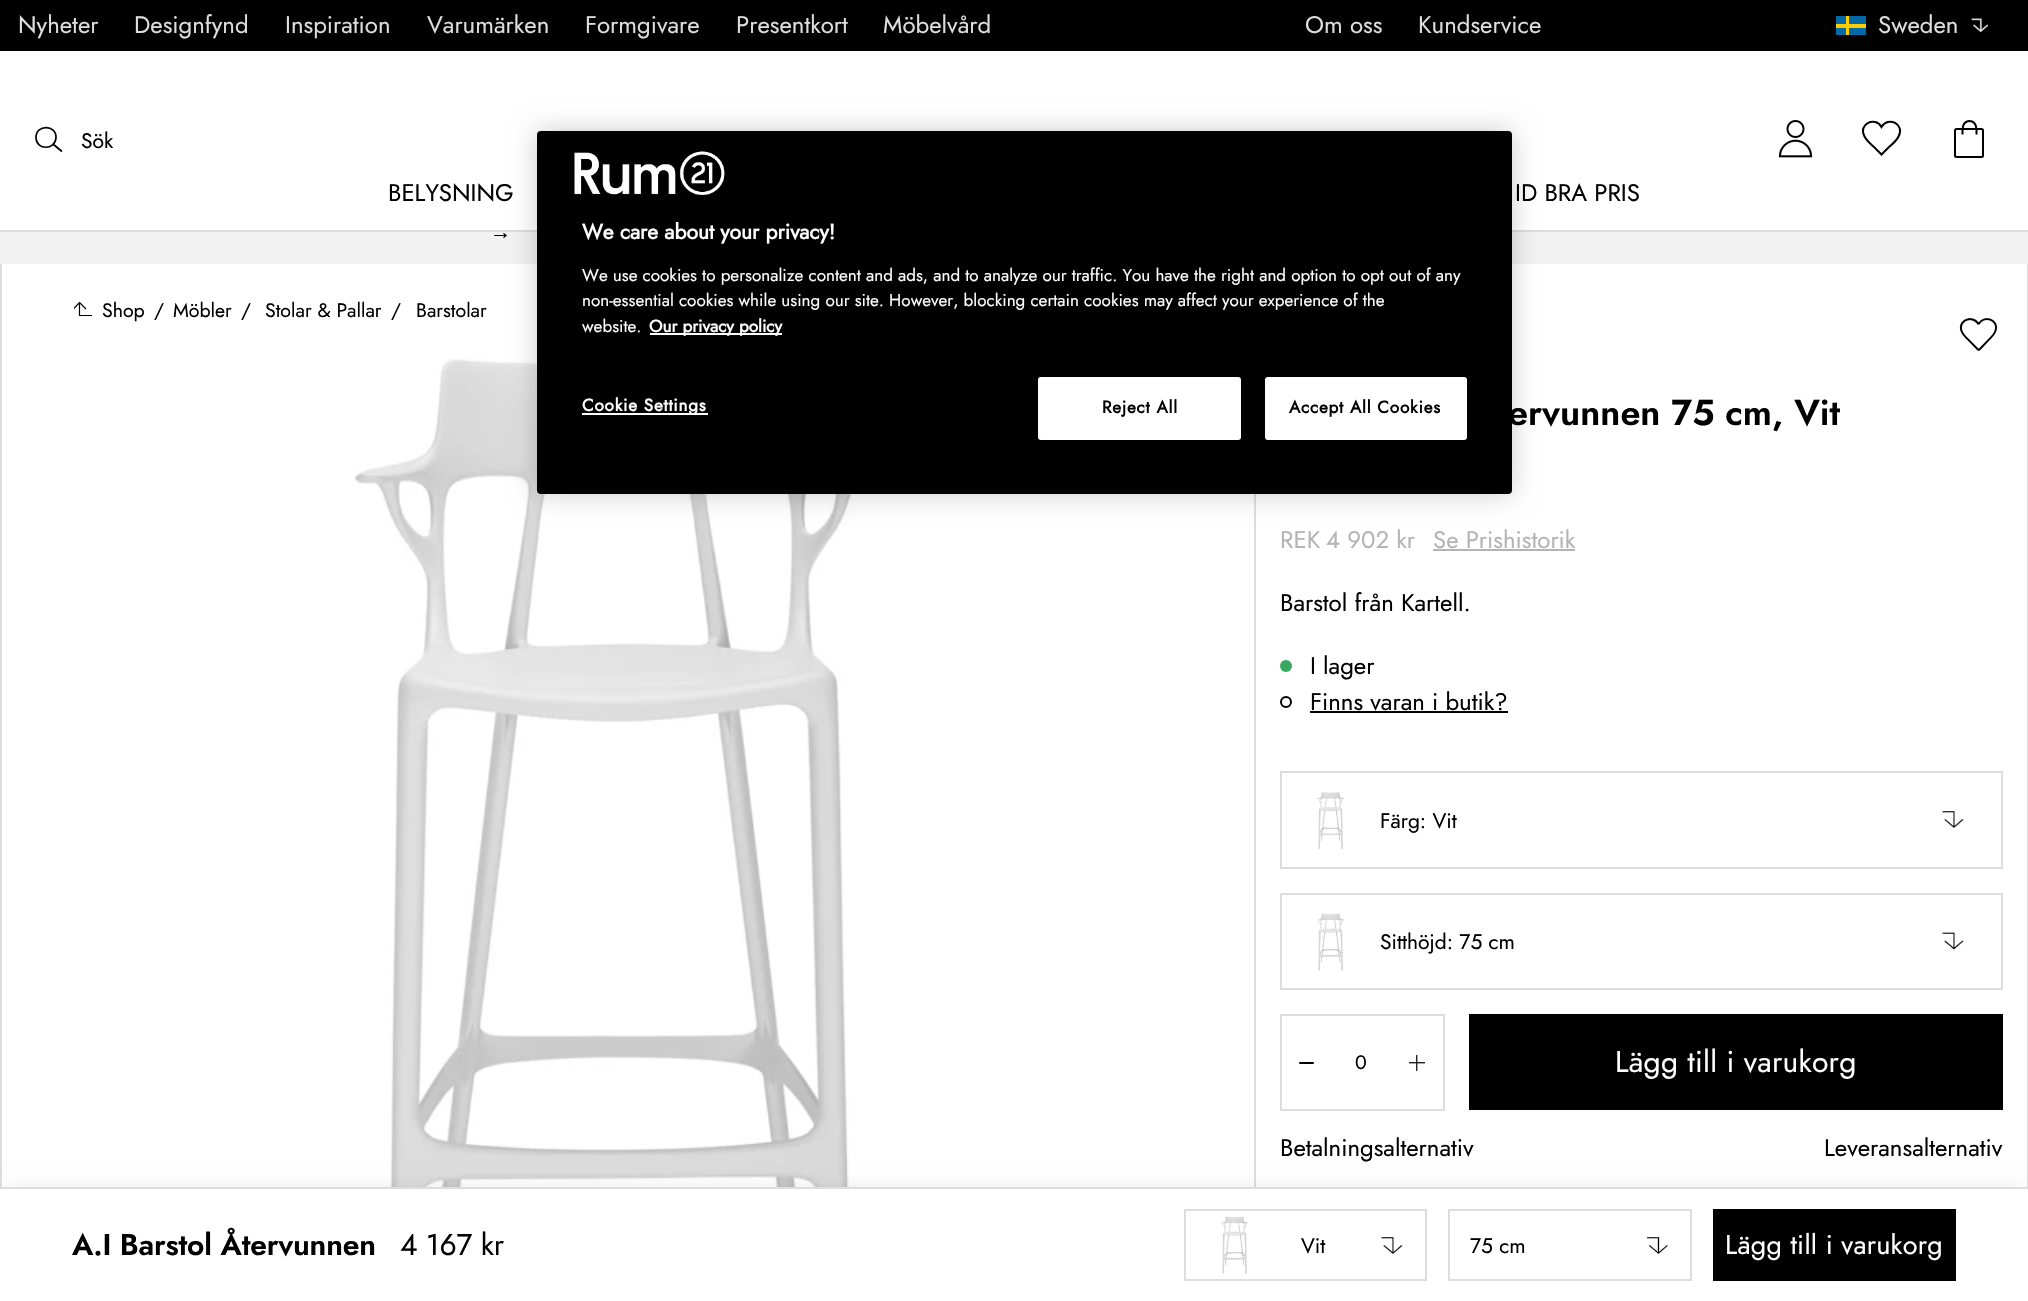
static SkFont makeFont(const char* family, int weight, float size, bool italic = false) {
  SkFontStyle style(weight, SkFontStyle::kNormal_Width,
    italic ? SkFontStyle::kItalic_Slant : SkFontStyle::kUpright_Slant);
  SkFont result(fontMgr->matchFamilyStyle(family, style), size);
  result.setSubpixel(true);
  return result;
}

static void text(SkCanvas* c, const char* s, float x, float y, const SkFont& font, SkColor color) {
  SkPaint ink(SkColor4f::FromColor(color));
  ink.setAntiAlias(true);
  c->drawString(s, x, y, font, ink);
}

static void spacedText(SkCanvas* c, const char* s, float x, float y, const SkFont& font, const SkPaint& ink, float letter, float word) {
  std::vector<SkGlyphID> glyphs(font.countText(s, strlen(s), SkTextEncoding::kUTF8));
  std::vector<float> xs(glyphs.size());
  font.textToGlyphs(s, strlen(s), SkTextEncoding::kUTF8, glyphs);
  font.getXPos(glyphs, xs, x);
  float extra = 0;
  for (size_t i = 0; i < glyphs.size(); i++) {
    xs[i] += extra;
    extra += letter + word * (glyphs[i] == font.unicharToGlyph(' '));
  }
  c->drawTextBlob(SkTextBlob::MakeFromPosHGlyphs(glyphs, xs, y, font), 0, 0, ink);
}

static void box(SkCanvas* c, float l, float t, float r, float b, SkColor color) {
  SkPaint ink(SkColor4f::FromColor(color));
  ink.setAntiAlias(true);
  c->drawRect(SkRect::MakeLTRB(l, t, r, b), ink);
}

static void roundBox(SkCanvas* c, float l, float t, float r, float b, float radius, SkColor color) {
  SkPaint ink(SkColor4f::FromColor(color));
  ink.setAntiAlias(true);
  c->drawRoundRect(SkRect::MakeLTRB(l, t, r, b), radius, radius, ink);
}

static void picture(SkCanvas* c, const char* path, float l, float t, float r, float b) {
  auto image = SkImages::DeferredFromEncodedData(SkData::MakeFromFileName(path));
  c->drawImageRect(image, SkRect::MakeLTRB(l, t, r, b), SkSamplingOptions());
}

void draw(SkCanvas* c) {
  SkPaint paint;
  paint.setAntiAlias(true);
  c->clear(0xffffffff);
  box(c, 0, 230, 2028, 232, 0xffdddddd);
  box(c, 0, 0, 2028, 51, 0xff000000);
  SkFont face1 = makeFont("Jost", 400, 24);
  text(c, "Nyheter", 18, 33, face1, 0xffdddddd);
  text(c, "Designfynd", 134, 33, face1, 0xffdddddd);
  text(c, "Inspiration", 285, 33, face1, 0xffdddddd);
  text(c, "Varumärken", 427, 33, face1, 0xffdddddd);
  text(c, "Formgivare", 585, 33, face1, 0xffdddddd);
  text(c, "Presentkort", 736, 33, face1, 0xffdddddd);
  text(c, "Möbelvård", 883, 33, face1, 0xffdddddd);
  text(c, "Om oss", 1305, 33, face1, 0xffdddddd);
  text(c, "Kundservice", 1418, 33, face1, 0xffdddddd);
  box(c, 1836, 16, 1866, 35, 0xff006aa7);
  box(c, 1846, 16, 1849, 35, 0xfffecc00);
  box(c, 1836, 24, 1866, 28, 0xfffecc00);
  text(c, "Sweden", 1878, 33, face1, 0xffdddddd);
  picture(c, "img_01.png", 1971, 18, 1989, 33);
  paint.setStyle(SkPaint::kStroke_Style);
  paint.setStrokeWidth(1.7f);
  paint.setColor(0xff000000);
  c->drawPath(SkPathBuilder().moveTo(36, 137.5f).cubicTo(36, 124, 56.5f, 124.5f, 56, 137.5f).cubicTo(55.5f, 150.5f, 36, 150.5f, 36, 137.5f).close().moveTo(53.5f, 144.5f).lineTo(62, 151.5f).close().detach(), paint);
  SkFont face2 = makeFont("Jost", 400, 21);
  text(c, "Sök", 81, 148, face2, 0xff000000);
  picture(c, "img_02.png", 1778, 120, 1813, 158);
  paint.setStrokeWidth(2);
  c->drawPath(SkPathBuilder().moveTo(1881.5f, 154.5f).lineTo(1888.5f, 147.5f).cubicTo(1892, 144.5f, 1896.5f, 141, 1898.5f, 136.5f).cubicTo(1905.5f, 124, 1888, 116, 1881.5f, 127).cubicTo(1875.5f, 116, 1857.5f, 124, 1864.5f, 136.5f).cubicTo(1867, 141, 1871, 144.5f, 1874.5f, 147.5f).close().detach(), paint);
  c->drawPath(SkPathBuilder().moveTo(1962.5f, 134.5f).lineTo(1962.5f, 129.5f).cubicTo(1962.5f, 118, 1976.5f, 118, 1976.5f, 129.5f).lineTo(1976.5f, 134.5f).detach(), paint);
  c->drawRoundRect(SkRect::MakeLTRB(1955, 129, 1983, 157), 1.5f, 1.5f, paint);
  text(c, "BELYSNING", 388, 201, face1, 0xff000000);
  text(c, "ID BRA PRIS", 1515, 201, face1, 0xff000000);
  box(c, 0, 232, 2028, 264, 0xfff2f2f2);
  SkFont face3 = makeFont("Liberation Serif", 400, 21);
  text(c, "→", 490, 239, face3, 0xff000000);
  box(c, 2027, 264, 2028, 1187, 0xffdddddd);
  box(c, 0, 264, 2, 1187, 0xffdddddd);
  paint.setStrokeWidth(1.2f);
  c->drawPath(SkPathBuilder().moveTo(79.5f, 303).lineTo(79.5f, 315.5f).lineTo(92, 315.5f).detach(), paint);
  c->save();
  c->clipRect(SkRect::MakeLTRB(74, 302, 93, 317));
  c->drawPath(SkPathBuilder().moveTo(86, 309).lineTo(79.5f, 302.5f).lineTo(73.5f, 309).detach(), paint);
  c->restore();
  SkFont face4 = makeFont("Jost", 400, 19.5f);
  text(c, "Shop", 102, 317, face4, 0xff000000);
  text(c, "/", 154, 317, face4, 0xff000000);
  text(c, "Möbler", 173, 317, face4, 0xff000000);
  text(c, "/", 241, 317, face4, 0xff000000);
  text(c, "Stolar & Pallar", 265, 317, face4, 0xff000000);
  text(c, "/", 391, 317, face4, 0xff000000);
  text(c, "Barstolar", 416, 317, face4, 0xff000000);
  picture(c, "img_03.png", 354, 357, 880, 1187);
  box(c, 1254, 494, 1256, 1187, 0xffdddddd);
  picture(c, "img_04.png", 1959, 318, 1997, 351);
  SkFont face5 = makeFont("Jost", 600, 36);
  text(c, "ervunnen 75 cm, Vit", 1508, 425, face5, 0xff000000);
  text(c, "REK", 1280, 548, face1, 0xffb4b4b4);
  text(c, "4 902 kr", 1326, 548, face1, 0xffb4b4b4);
  text(c, "Se Prishistorik", 1433, 548, face1, 0xffb4b4b4);
  box(c, 1433, 549, 1575, 551, 0xffb4b4b4);
  text(c, "Barstol från Kartell.", 1280, 611, face1, 0xff000000);
  paint.setStyle(SkPaint::kFill_Style);
  paint.setColor(0xff38aa60);
  c->drawCircle(1286, 666, 6, paint);
  text(c, "I lager", 1310, 674, face1, 0xff000000);
  paint.setStyle(SkPaint::kStroke_Style);
  paint.setStrokeWidth(2);
  paint.setColor(0xff000000);
  c->drawCircle(1286, 702, 5, paint);
  text(c, "Finns varan i butik?", 1310, 710, face1, 0xff000000);
  box(c, 1310, 711, 1508, 713, 0xff000000);
  paint.setColor(0xffdddddd);
  c->drawRect(SkRect::MakeLTRB(1281, 772, 2002, 868), paint);
  picture(c, "img_05.png", 1316, 792, 1345, 849);
  text(c, "Färg: Vit", 1380, 828, face2, 0xff000000);
  picture(c, "img_06.png", 1942, 811, 1964, 828);
  c->drawRect(SkRect::MakeLTRB(1281, 894, 2002, 989), paint);
  picture(c, "img_07.png", 1317, 913, 1344, 971);
  text(c, "Sitthöjd: 75 cm", 1380, 949, face2, 0xff000000);
  picture(c, "img_08.png", 1942, 932, 1964, 950);
  box(c, 1280, 1014, 1445, 1016, 0xffdddddd);
  box(c, 1280, 1109, 1391, 1111, 0xffdddddd);
  box(c, 1280, 1014, 1282, 1110, 0xffdddddd);
  c->save();
  c->clipRect(SkRect::MakeLTRB(1299, 1062, 1314, 1064));
  paint.setStrokeWidth(1.5f);
  paint.setColor(0xff000000);
  c->drawPath(SkPathBuilder().moveTo(1313, 1062).lineTo(1313, 1063.5f).lineTo(1300, 1063.5f).lineTo(1300, 1062).close().detach(), paint);
  c->restore();
  text(c, "0", 1355, 1069, face4, 0xff000000);
  box(c, 1443, 1014, 1445, 1110, 0xffdddddd);
  box(c, 1391, 1109, 1445, 1111, 0xffdddddd);
  picture(c, "img_09.png", 1409, 1055, 1425, 1071);
  box(c, 1469, 1014, 2003, 1110, 0xff000000);
  SkFont face6 = makeFont("Jost", 400, 30);
  paint.setStyle(SkPaint::kFill_Style);
  paint.setColor(0xffffffff);
  spacedText(c, "Lägg till i varukorg", 1615, 1072, face6, paint, 0.25f, 0);
  text(c, "Betalningsalternativ", 1280, 1156, face1, 0xff000000);
  text(c, "Leveransalternativ", 1824, 1156, face1, 0xff000000);
  paint.setColor(0x40000000);
  paint.setMaskFilter(SkMaskFilter::MakeBlur(kNormal_SkBlurStyle, 12));
  c->drawRect(SkRect::MakeLTRB(6, 1199, 2022, 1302), paint);
  paint.setMaskFilter(nullptr);
  box(c, 0, 1189, 2028, 1301, 0xffffffff);
  box(c, 0, 1187, 2028, 1189, 0xffdddddd);
  SkFont face7 = makeFont("Jost", 600, 30);
  paint.setColor(0xff000000);
  spacedText(c, "A.I Barstol Återvunnen", 72, 1255, face7, paint, -0.2f, 0);
  spacedText(c, "4 167 kr", 400, 1255, face6, paint, -0.2f, 0);
  paint.setStyle(SkPaint::kStroke_Style);
  paint.setStrokeWidth(2);
  paint.setColor(0xffdddddd);
  c->drawRect(SkRect::MakeLTRB(1185, 1210, 1426, 1280), paint);
  picture(c, "img_07.png", 1221, 1216, 1248, 1274);
  text(c, "Vit", 1301, 1253, face2, 0xff000000);
  picture(c, "img_06.png", 1381, 1237, 1403, 1254);
  c->drawRect(SkRect::MakeLTRB(1449, 1210, 1691, 1280), paint);
  text(c, "75 cm", 1470, 1253, face2, 0xff000000);
  picture(c, "img_10.png", 1646, 1237, 1668, 1254);
  box(c, 1713, 1209, 1956, 1281, 0xff000000);
  SkFont face8 = makeFont("Jost", 400, 27);
  paint.setStyle(SkPaint::kFill_Style);
  paint.setColor(0xffffffff);
  spacedText(c, "Lägg till i varukorg", 1725, 1254, face8, paint, 0.25f, 0);
  paint.setColor(0x33000000);
  paint.setMaskFilter(SkMaskFilter::MakeBlur(kNormal_SkBlurStyle, 13.5f));
  c->drawRoundRect(SkRect::MakeLTRB(537, 131, 1512, 494), 4, 4, paint);
  paint.setMaskFilter(nullptr);
  roundBox(c, 537, 131, 1512, 494, 4, 0xff000000);
  picture(c, "img_11.png", 574, 151, 725, 195);
  SkFont face9 = makeFont("Jost", 700, 21);
  text(c, "We care about your privacy!", 582, 239, face9, 0xffffffff);
  SkFont face10 = makeFont("Jost", 400, 17.07f);
  text(c, "We use cookies to personalize content and ads, and to analyze our traffic. You have the right and option to opt out of any", 582, 281, face10, 0xffffffff);
  text(c, "non-essential cookies while using our site. However, blocking certain cookies may affect your experience of the", 582, 306, face10, 0xffffffff);
  text(c, "website.", 582, 332, face10, 0xffffffff);
  box(c, 650, 333, 782, 335, 0xffffffff);
  SkFont face11 = makeFont("Jost", 700, 17.07f);
  text(c, "Our privacy policy", 649, 332, face11, 0xffffffff);
  box(c, 582, 413, 708, 415, 0xffffffff);
  paint.setColor(0xffffffff);
  spacedText(c, "Cookie Settings", 582, 411, face11, paint, 0.8f, 0);
  c->drawRoundRect(SkRect::MakeLTRB(1039, 378, 1240, 439), 2, 2, paint);
  paint.setStyle(SkPaint::kStroke_Style);
  c->drawRoundRect(SkRect::MakeLTRB(1039, 378, 1240, 439), 2, 2, paint);
  paint.setStyle(SkPaint::kFill_Style);
  paint.setColor(0xff000000);
  spacedText(c, "Reject All", 1102, 413, face11, paint, 0.8f, 0);
  paint.setColor(0xffffffff);
  c->drawRoundRect(SkRect::MakeLTRB(1266, 378, 1466, 439), 2, 2, paint);
  paint.setStyle(SkPaint::kStroke_Style);
  c->drawRoundRect(SkRect::MakeLTRB(1266, 378, 1466, 439), 2, 2, paint);
  paint.setStyle(SkPaint::kFill_Style);
  paint.setColor(0xff000000);
  spacedText(c, "Accept All Cookies", 1289, 413, face11, paint, 0.8f, 0);
}
